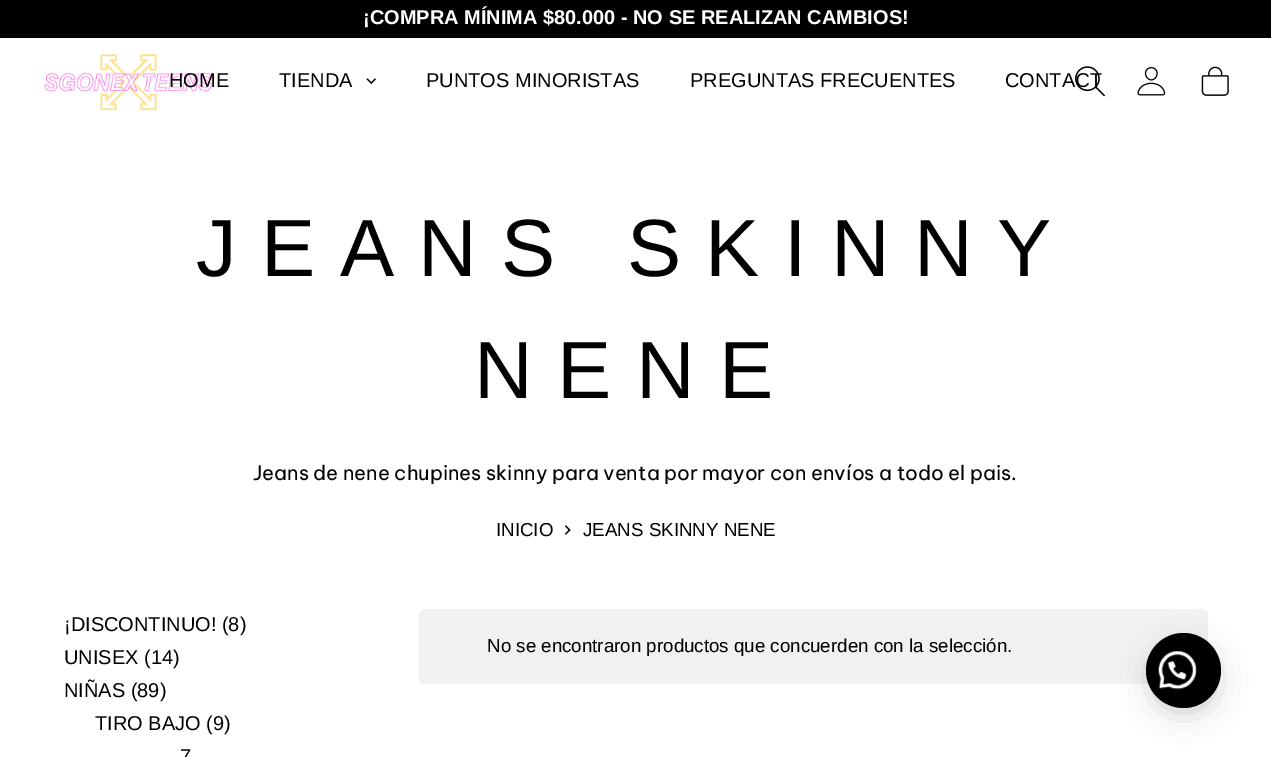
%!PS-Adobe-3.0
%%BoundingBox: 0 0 1271 757
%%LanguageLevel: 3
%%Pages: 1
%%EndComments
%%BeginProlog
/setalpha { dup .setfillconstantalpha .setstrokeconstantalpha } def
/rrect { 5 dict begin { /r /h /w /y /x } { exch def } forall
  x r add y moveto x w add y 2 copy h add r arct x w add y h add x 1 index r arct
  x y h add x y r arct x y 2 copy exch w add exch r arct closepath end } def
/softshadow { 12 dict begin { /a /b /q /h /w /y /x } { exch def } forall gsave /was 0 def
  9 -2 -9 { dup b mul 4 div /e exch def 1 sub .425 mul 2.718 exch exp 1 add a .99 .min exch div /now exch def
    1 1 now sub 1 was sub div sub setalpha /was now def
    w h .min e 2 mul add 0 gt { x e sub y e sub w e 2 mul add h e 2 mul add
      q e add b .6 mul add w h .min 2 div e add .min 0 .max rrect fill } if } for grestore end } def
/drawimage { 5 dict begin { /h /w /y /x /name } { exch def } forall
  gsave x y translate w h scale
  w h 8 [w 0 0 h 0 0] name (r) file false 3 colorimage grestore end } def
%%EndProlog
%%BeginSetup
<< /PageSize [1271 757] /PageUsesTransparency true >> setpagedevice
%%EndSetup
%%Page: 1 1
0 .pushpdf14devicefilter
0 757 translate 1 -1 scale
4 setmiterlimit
1 setgray
0 0 1271 757 rectfill
0 setgray
0 0 1271 38 rectfill
(images/1.raw) 44 54 169 57 drawimage
(images/2.raw) 366 78 10 6 drawimage
(images/4.raw) 1137 67 29 29 drawimage
(images/5.raw) 1201 66 28 30 drawimage
(images/6.raw) 565 525 6 10 drawimage
0.941 0.945 0.953 setrgbcolor
419 609 789 75 6 rrect fill
0.176 0.243 0.31 setrgbcolor
1153 649 62 62 31 15.5 0.3 softshadow
0 setgray
newpath 1183.5 670.5 37.5 0 360 arc closepath fill
(images/7.raw) 1158 651 39 39 drawimage
/LiberationSans-Bold [20 0 0 -20 0 0] selectfont
1 setgray
363 24 moveto (¡COMPRA MÍNIMA $80.000 - NO SE REALIZAN CAMBIOS!) show
/LiberationSans-Regular [20 0 0 -20 0 0] selectfont
0 setgray
169 87 moveto (HOME) show
279 87 moveto (TIENDA) show
426 87 moveto (PUNTOS MINORISTAS) show
690 87 moveto (PREGUNTAS FRECUENTES) show
1005 87 moveto (CONTACT) show
(images/3.raw) 1075 66 30 31 drawimage
/LiberationSans-Regular [81.25 0 0 -81.25 0 0] selectfont
196 276 moveto 24.4 0 (JEANS SKINNY) ashow
474 398 moveto 24.4 0 (NENE) ashow
/BeVietnamPro-Regular [20 0 0 -20 0 0] selectfont
253 480 moveto (Jeans de nene chupines skinny para venta por mayor con envíos a todo el pais.) show
/LiberationSans-Regular [18.75 0 0 -18.75 0 0] selectfont
496 536 moveto (INICIO) show
583 536 moveto (JEANS SKINNY NENE) show
/LiberationSans-Regular [20 0 0 -20 0 0] selectfont
64 631 moveto (¡DISCONTINUO! \(8\)) show
64 664 moveto (UNISEX \(14\)) show
64 697 moveto (NIÑAS \(89\)) show
95 730 moveto (TIRO BAJO \(9\)) show
180 763 moveto (7) show
/LiberationSans-Regular [18.75 0 0 -18.75 0 0] selectfont
487 652 moveto (No se encontraron productos que concuerden con la selección.) show
.poppdf14devicefilter showpage
%%EOF
